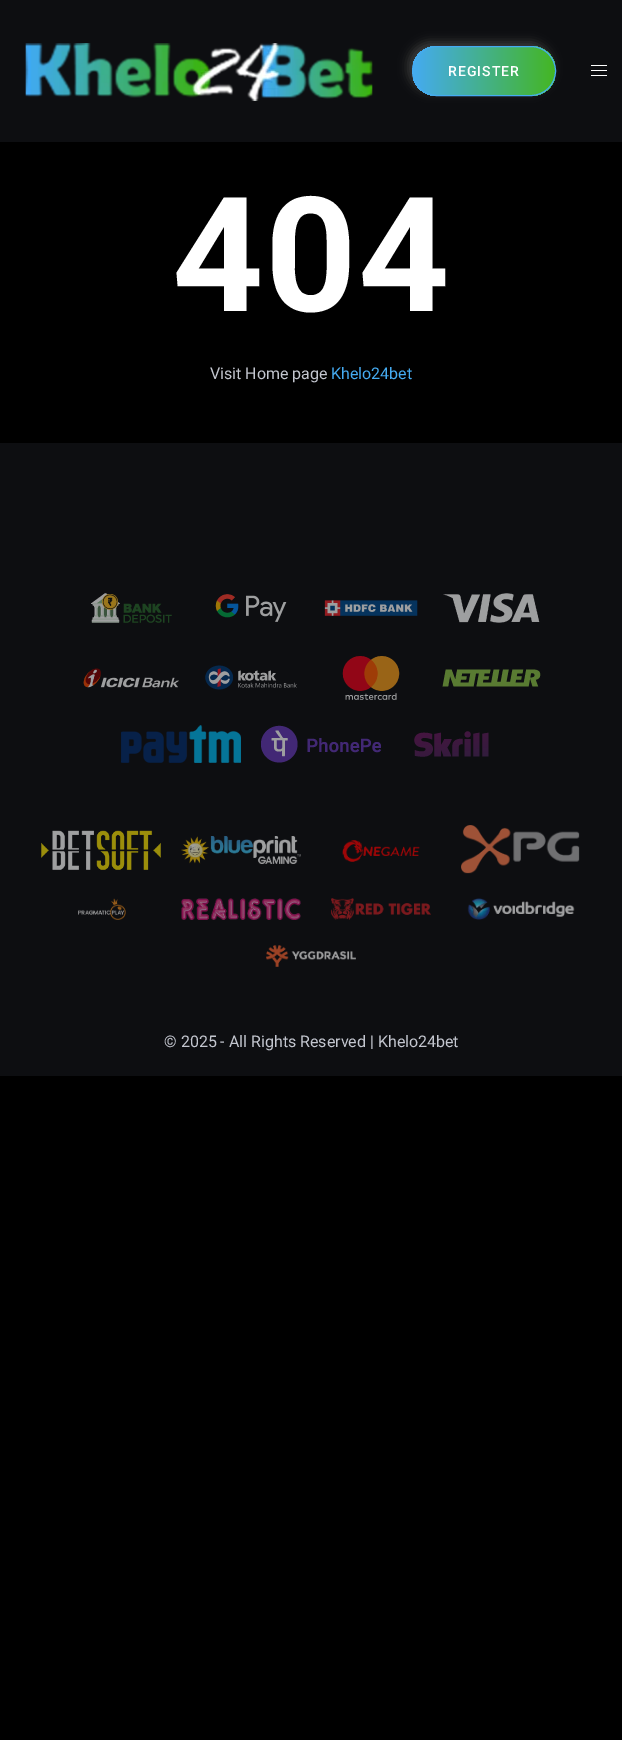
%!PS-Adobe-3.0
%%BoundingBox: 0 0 622 1740
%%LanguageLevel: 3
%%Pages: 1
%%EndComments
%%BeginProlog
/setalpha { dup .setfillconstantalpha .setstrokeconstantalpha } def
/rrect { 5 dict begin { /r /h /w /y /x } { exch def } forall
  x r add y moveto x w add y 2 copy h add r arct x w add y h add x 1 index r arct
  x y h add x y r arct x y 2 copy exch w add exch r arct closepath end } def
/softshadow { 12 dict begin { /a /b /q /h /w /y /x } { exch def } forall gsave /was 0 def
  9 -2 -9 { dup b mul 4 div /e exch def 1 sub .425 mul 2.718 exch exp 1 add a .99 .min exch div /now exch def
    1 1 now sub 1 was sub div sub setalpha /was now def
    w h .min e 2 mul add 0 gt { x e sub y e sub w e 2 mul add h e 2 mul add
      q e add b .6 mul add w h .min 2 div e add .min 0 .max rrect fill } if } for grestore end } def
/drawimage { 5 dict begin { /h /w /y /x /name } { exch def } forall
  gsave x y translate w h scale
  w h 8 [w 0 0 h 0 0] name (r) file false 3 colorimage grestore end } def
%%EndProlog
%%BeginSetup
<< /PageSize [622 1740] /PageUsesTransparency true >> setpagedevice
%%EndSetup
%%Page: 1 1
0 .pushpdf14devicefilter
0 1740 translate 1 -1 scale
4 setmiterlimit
0 setgray
0 0 622 1740 rectfill
0.051 0.055 0.067 setrgbcolor
0 0 622 142 rectfill
(images/1.raw) 25 43 348 58 drawimage
0.235 setgray
408 42 144 50 25 5 1 softshadow
gsave
412 46 144 50 25 rrect clip newpath
gsave newpath 413 46 moveto 555 46 lineto 555 96 lineto 413 96 lineto closepath clip newpath
<< /ShadingType 2 /ColorSpace /DeviceRGB /Coords [413 71 555 71] /Extend [true true] /Function << /FunctionType 2 /Domain [0 1] /C0 [0.271 0.671 0.945] /C1 [0.267 0.714 0.137] /N 1 >> >> shfill grestore
grestore
0.271 0.671 0.945 setrgbcolor
412.5 46.5 143 49 24.5 rrect stroke
1 setgray
591 65 16 1 rectfill
591 70 16 1 rectfill
591 75 16 1 rectfill
0.051 0.055 0.067 setrgbcolor
0 443 622 633 rectfill
(images/2.raw) 91 593 81 30 drawimage
(images/3.raw) 215 594 72 28 drawimage
(images/4.raw) 324 600 94 16 drawimage
(images/5.raw) 443 593 97 30 drawimage
(images/6.raw) 83 668 96 20 drawimage
(images/7.raw) 205 665 92 25 drawimage
(images/8.raw) 342 656 58 44 drawimage
(images/9.raw) 442 669 99 18 drawimage
(images/10.raw) 121 725 120 38 drawimage
(images/11.raw) 261 725 120 38 drawimage
(images/12.raw) 414 731 75 26 drawimage
(images/13.raw) 41 830 120 40 drawimage
(images/14.raw) 181 836 120 28 drawimage
(images/15.raw) 342 840 78 22 drawimage
(images/16.raw) 461 825 119 49 drawimage
(images/17.raw) 78 898 48 22 drawimage
(images/18.raw) 181 898 120 22 drawimage
(images/19.raw) 331 898 100 22 drawimage
(images/20.raw) 467 898 108 22 drawimage
(images/21.raw) 266 945 90 22 drawimage
/Roboto-Medium [14 0 0 -14 0 0] selectfont
1 setgray
448 76 moveto 1 0 (REGISTER) ashow
/Roboto-Bold [160 0 0 -160 0 0] selectfont
172 311 moveto 1 0 (404) ashow
/Roboto-Regular [16 0 0 -16 0 0] selectfont
0.765 0.776 0.812 setrgbcolor
210 379 moveto (Visit Home page) show
0.271 0.671 0.945 setrgbcolor
331 379 moveto (Khelo24bet) show
0.765 0.776 0.812 setrgbcolor
164 1047 moveto (© 2025 - All Rights Reserved | Khelo24bet) show
.poppdf14devicefilter showpage
%%EOF
